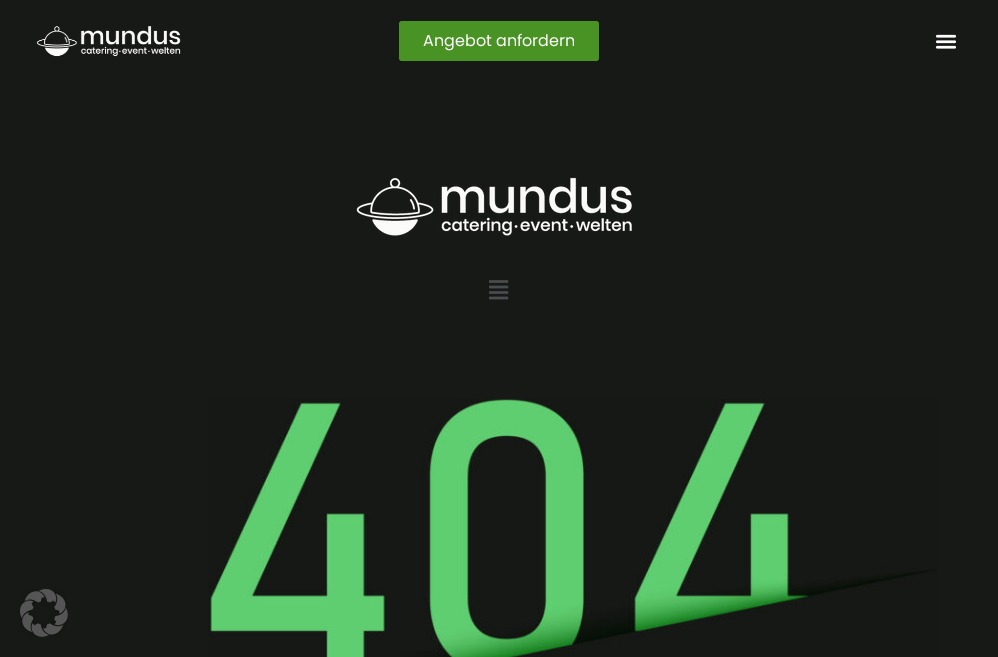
%!PS-Adobe-3.0
%%BoundingBox: 0 0 998 657
%%LanguageLevel: 3
%%Pages: 1
%%EndComments
%%BeginProlog
/rrect { 5 dict begin { /r /h /w /y /x } { exch def } forall
  x r add y moveto x w add y 2 copy h add r arct x w add y h add x 1 index r arct
  x y h add x y r arct x y 2 copy exch w add exch r arct closepath end } def
/drawimage { 5 dict begin { /h /w /y /x /name } { exch def } forall
  gsave x y translate w h scale
  w h 8 [w 0 0 h 0 0] name (r) file false 3 colorimage grestore end } def
%%EndProlog
%%BeginSetup
<< /PageSize [998 657] >> setpagedevice
%%EndSetup
%%Page: 1 1
0 657 translate 1 -1 scale
4 setmiterlimit
0.09 0.098 0.086 setrgbcolor
0 0 998 657 rectfill
(images/1.raw) 36 26 145 31 drawimage
0.286 0.576 0.145 setrgbcolor
399 21 200 40 3 rrect fill
(images/2.raw) 935 34 22 15 drawimage
(images/3.raw) 356 177 276 59 drawimage
(images/4.raw) 489 280 20 20 drawimage
(images/5.raw) 208 399 729 258 drawimage
(images/6.raw) 20 589 48 48 drawimage
/Poppins-Regular [16 0 0 -16 0 0] selectfont
1 setgray
423 46 moveto (Angebot anfordern) show
showpage
%%EOF
